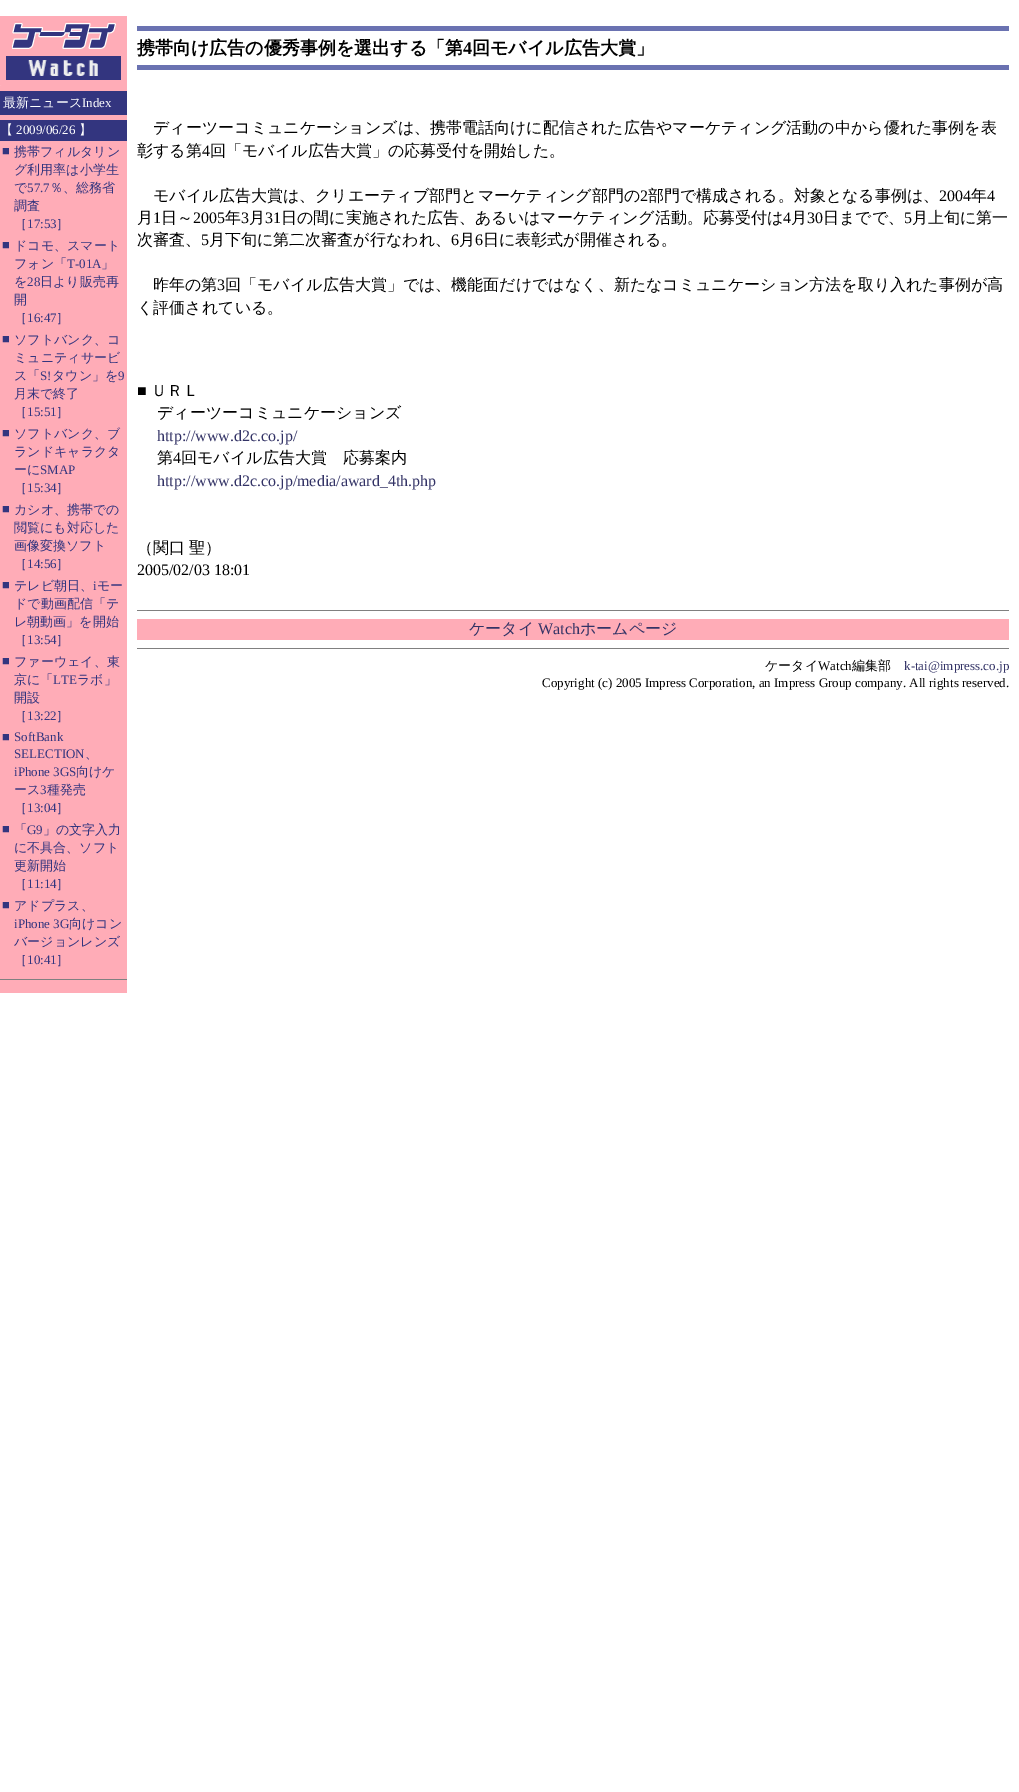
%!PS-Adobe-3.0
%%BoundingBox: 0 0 1019 1792
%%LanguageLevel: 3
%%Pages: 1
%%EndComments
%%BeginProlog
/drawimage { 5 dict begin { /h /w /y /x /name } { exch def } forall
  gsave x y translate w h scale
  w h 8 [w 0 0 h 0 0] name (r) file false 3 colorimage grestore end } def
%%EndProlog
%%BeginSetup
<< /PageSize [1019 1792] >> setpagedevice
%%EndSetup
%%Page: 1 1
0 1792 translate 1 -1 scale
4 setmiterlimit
1 setgray
0 0 1019 1792 rectfill
1 0.675 0.718 setrgbcolor
0 16 127 977 rectfill
(images/1.raw) 0 21 121 65 drawimage
0.2 0.208 0.498 setrgbcolor
0 91 127 24 rectfill
0 120 127 21 rectfill
0.502 setgray
0 979 127 1 rectfill
0.416 0.447 0.694 setrgbcolor
137 26 872 5 rectfill
137 65 872 5 rectfill
0.502 setgray
137 610 872 1 rectfill
1 0.675 0.718 setrgbcolor
137 619 872 21 rectfill
0.502 setgray
137 648 872 1 rectfill
/WenQuanYiZenHei-Medium [13 0 0 -13 0 0] selectfont
1 setgray
3 107 moveto (最新ニュース) show
/LiberationSerif-Regular [13 0 0 -13 0 0] selectfont
82 107 moveto (Index) show
/WenQuanYiZenHei-Medium [13 0 0 -13 0 0] selectfont
0 134 moveto (【) show
/LiberationSerif-Regular [13 0 0 -13 0 0] selectfont
16 134 moveto (2009/06/26) show
/WenQuanYiZenHei-Medium [13 0 0 -13 0 0] selectfont
79 134 moveto (】) show
/LiberationSerif-Regular [13 0 0 -13 0 0] selectfont
0.2 0.208 0.498 setrgbcolor
2 155 moveto (■) show
/WenQuanYiZenHei-Medium [13 0 0 -13 0 0] selectfont
14 156 moveto (携帯フィルタリン) show
14 174 moveto (グ利用率は小学生) show
14 192 moveto (で) show
/LiberationSerif-Regular [13 0 0 -13 0 0] selectfont
27 192 moveto (57.7) show
/WenQuanYiZenHei-Medium [13 0 0 -13 0 0] selectfont
50 192 moveto (％、総務省) show
14 210 moveto (調査) show
14 228 moveto (［) show
/LiberationSerif-Regular [13 0 0 -13 0 0] selectfont
27 228 moveto (17:53) show
/WenQuanYiZenHei-Medium [13 0 0 -13 0 0] selectfont
56 228 moveto (］) show
/LiberationSerif-Regular [13 0 0 -13 0 0] selectfont
2 249 moveto (■) show
/WenQuanYiZenHei-Medium [13 0 0 -13 0 0] selectfont
14 250 moveto (ドコモ、スマート) show
14 268 moveto (フォン「) show
/LiberationSerif-Regular [13 0 0 -13 0 0] selectfont
67 268 moveto (T-01A) show
/WenQuanYiZenHei-Medium [13 0 0 -13 0 0] selectfont
101 268 moveto (」) show
14 286 moveto (を) show
/LiberationSerif-Regular [13 0 0 -13 0 0] selectfont
27 286 moveto (28) show
/WenQuanYiZenHei-Medium [13 0 0 -13 0 0] selectfont
40 286 moveto (日より販売再) show
14 304 moveto (開) show
14 322 moveto (［) show
/LiberationSerif-Regular [13 0 0 -13 0 0] selectfont
27 322 moveto (16:47) show
/WenQuanYiZenHei-Medium [13 0 0 -13 0 0] selectfont
56 322 moveto (］) show
/LiberationSerif-Regular [13 0 0 -13 0 0] selectfont
2 343 moveto (■) show
/WenQuanYiZenHei-Medium [13 0 0 -13 0 0] selectfont
14 344 moveto (ソフトバンク、コ) show
14 362 moveto (ミュニティサービ) show
14 380 moveto (ス「) show
/LiberationSerif-Regular [13 0 0 -13 0 0] selectfont
40 380 moveto (S!) show
/WenQuanYiZenHei-Medium [13 0 0 -13 0 0] selectfont
52 380 moveto (タウン」を) show
/LiberationSerif-Regular [13 0 0 -13 0 0] selectfont
118 380 moveto (9) show
/WenQuanYiZenHei-Medium [13 0 0 -13 0 0] selectfont
14 398 moveto (月末で終了) show
14 416 moveto (［) show
/LiberationSerif-Regular [13 0 0 -13 0 0] selectfont
27 416 moveto (15:51) show
/WenQuanYiZenHei-Medium [13 0 0 -13 0 0] selectfont
56 416 moveto (］) show
/LiberationSerif-Regular [13 0 0 -13 0 0] selectfont
2 437 moveto (■) show
/WenQuanYiZenHei-Medium [13 0 0 -13 0 0] selectfont
14 438 moveto (ソフトバンク、ブ) show
14 456 moveto (ランドキャラクタ) show
14 474 moveto (ーに) show
/LiberationSerif-Regular [13 0 0 -13 0 0] selectfont
40 474 moveto (SMAP) show
/WenQuanYiZenHei-Medium [13 0 0 -13 0 0] selectfont
14 492 moveto (［) show
/LiberationSerif-Regular [13 0 0 -13 0 0] selectfont
27 492 moveto (15:34) show
/WenQuanYiZenHei-Medium [13 0 0 -13 0 0] selectfont
56 492 moveto (］) show
/LiberationSerif-Regular [13 0 0 -13 0 0] selectfont
2 513 moveto (■) show
/WenQuanYiZenHei-Medium [13 0 0 -13 0 0] selectfont
14 514 moveto (カシオ、携帯での) show
14 532 moveto (閲覧にも対応した) show
14 550 moveto (画像変換ソフト) show
14 568 moveto (［) show
/LiberationSerif-Regular [13 0 0 -13 0 0] selectfont
27 568 moveto (14:56) show
/WenQuanYiZenHei-Medium [13 0 0 -13 0 0] selectfont
56 568 moveto (］) show
/LiberationSerif-Regular [13 0 0 -13 0 0] selectfont
2 589 moveto (■) show
/WenQuanYiZenHei-Medium [13 0 0 -13 0 0] selectfont
14 590 moveto (テレビ朝日、 モー) show
/LiberationSerif-Regular [13 0 0 -13 0 0] selectfont
93 590 moveto (i) show
/WenQuanYiZenHei-Medium [13 0 0 -13 0 0] selectfont
14 608 moveto (ドで動画配信「テ) show
14 626 moveto (レ朝動画」を開始) show
14 644 moveto (［) show
/LiberationSerif-Regular [13 0 0 -13 0 0] selectfont
27 644 moveto (13:54) show
/WenQuanYiZenHei-Medium [13 0 0 -13 0 0] selectfont
56 644 moveto (］) show
/LiberationSerif-Regular [13 0 0 -13 0 0] selectfont
2 665 moveto (■) show
/WenQuanYiZenHei-Medium [13 0 0 -13 0 0] selectfont
14 666 moveto (ファーウェイ、東) show
14 684 moveto (京に「) show
/LiberationSerif-Regular [13 0 0 -13 0 0] selectfont
53 684 moveto (LTE) show
/WenQuanYiZenHei-Medium [13 0 0 -13 0 0] selectfont
77 684 moveto (ラボ」) show
14 702 moveto (開設) show
14 720 moveto (［) show
/LiberationSerif-Regular [13 0 0 -13 0 0] selectfont
27 720 moveto (13:22) show
/WenQuanYiZenHei-Medium [13 0 0 -13 0 0] selectfont
56 720 moveto (］) show
/LiberationSerif-Regular [13 0 0 -13 0 0] selectfont
2 741 moveto (■) show
14 741 moveto (SoftBank) show
14 758 moveto (SELECTION) show
/WenQuanYiZenHei-Medium [13 0 0 -13 0 0] selectfont
85 758 moveto (、) show
/LiberationSerif-Regular [13 0 0 -13 0 0] selectfont
14 776 moveto (iPhone 3GS) show
/WenQuanYiZenHei-Medium [13 0 0 -13 0 0] selectfont
76 776 moveto (向けケ) show
14 794 moveto (ース) show
/LiberationSerif-Regular [13 0 0 -13 0 0] selectfont
40 794 moveto (3) show
/WenQuanYiZenHei-Medium [13 0 0 -13 0 0] selectfont
47 794 moveto (種発売) show
14 812 moveto (［) show
/LiberationSerif-Regular [13 0 0 -13 0 0] selectfont
27 812 moveto (13:04) show
/WenQuanYiZenHei-Medium [13 0 0 -13 0 0] selectfont
56 812 moveto (］) show
/LiberationSerif-Regular [13 0 0 -13 0 0] selectfont
2 833 moveto (■) show
/WenQuanYiZenHei-Medium [13 0 0 -13 0 0] selectfont
14 834 moveto (「) show
/LiberationSerif-Regular [13 0 0 -13 0 0] selectfont
27 834 moveto (G9) show
/WenQuanYiZenHei-Medium [13 0 0 -13 0 0] selectfont
43 834 moveto (」の文字入力) show
14 852 moveto (に不具合、ソフト) show
14 870 moveto (更新開始) show
14 888 moveto (［) show
/LiberationSerif-Regular [13 0 0 -13 0 0] selectfont
27 888 moveto (11:14) show
/WenQuanYiZenHei-Medium [13 0 0 -13 0 0] selectfont
56 888 moveto (］) show
/LiberationSerif-Regular [13 0 0 -13 0 0] selectfont
2 909 moveto (■) show
/WenQuanYiZenHei-Medium [13 0 0 -13 0 0] selectfont
14 910 moveto (アドプラス、) show
/LiberationSerif-Regular [13 0 0 -13 0 0] selectfont
14 928 moveto (iPhone 3G) show
/WenQuanYiZenHei-Medium [13 0 0 -13 0 0] selectfont
69 928 moveto (向けコン) show
14 946 moveto (バージョンレンズ) show
14 964 moveto (［) show
/LiberationSerif-Regular [13 0 0 -13 0 0] selectfont
27 964 moveto (10:41) show
/WenQuanYiZenHei-Medium [13 0 0 -13 0 0] selectfont
56 964 moveto (］) show
/WenQuanYiZenHei-Bold [18 0 0 -18 0 0] selectfont
0 setgray
137 54 moveto (携帯向け広告の優秀事例を選出する「第) show
/LiberationSerif-Bold [18 0 0 -18 0 0] selectfont
463 54 moveto (4) show
/WenQuanYiZenHei-Bold [18 0 0 -18 0 0] selectfont
472 54 moveto (回モバイル広告大賞」) show
/WenQuanYiZenHei-Medium [16 0 0 -16 0 0] selectfont
153 133 moveto (ディーツーコミュニケーションズは、携帯電話向けに配信された広告やマーケティング活動の中から優れた事例を表) show
137 156 moveto (彰する第) show
/LiberationSerif-Regular [16 0 0 -16 0 0] selectfont
202 156 moveto (4) show
/WenQuanYiZenHei-Medium [16 0 0 -16 0 0] selectfont
210 156 moveto (回「モバイル広告大賞」の応募受付を開始した。) show
153 201 moveto (モバイル広告大賞は、クリエーティブ部門とマーケティング部門の) show
/LiberationSerif-Regular [16 0 0 -16 0 0] selectfont
640 201 moveto (2) show
/WenQuanYiZenHei-Medium [16 0 0 -16 0 0] selectfont
648 201 moveto (部門で構成される。対象となる事例は、) show
/LiberationSerif-Regular [16 0 0 -16 0 0] selectfont
939 201 moveto (2004) show
/WenQuanYiZenHei-Medium [16 0 0 -16 0 0] selectfont
971 201 moveto (年) show
/LiberationSerif-Regular [16 0 0 -16 0 0] selectfont
987 201 moveto (4) show
/WenQuanYiZenHei-Medium [16 0 0 -16 0 0] selectfont
137 223 moveto (月) show
/LiberationSerif-Regular [16 0 0 -16 0 0] selectfont
153 223 moveto (1) show
/WenQuanYiZenHei-Medium [16 0 0 -16 0 0] selectfont
161 223 moveto (日～) show
/LiberationSerif-Regular [16 0 0 -16 0 0] selectfont
193 223 moveto (2005) show
/WenQuanYiZenHei-Medium [16 0 0 -16 0 0] selectfont
225 223 moveto (年) show
/LiberationSerif-Regular [16 0 0 -16 0 0] selectfont
241 223 moveto (3) show
/WenQuanYiZenHei-Medium [16 0 0 -16 0 0] selectfont
249 223 moveto (月) show
/LiberationSerif-Regular [16 0 0 -16 0 0] selectfont
265 223 moveto (31) show
/WenQuanYiZenHei-Medium [16 0 0 -16 0 0] selectfont
281 223 moveto (日の間に実施された広告、あるいはマーケティング活動。応募受付は) show
/LiberationSerif-Regular [16 0 0 -16 0 0] selectfont
783 223 moveto (4) show
/WenQuanYiZenHei-Medium [16 0 0 -16 0 0] selectfont
791 223 moveto (月) show
/LiberationSerif-Regular [16 0 0 -16 0 0] selectfont
807 223 moveto (30) show
/WenQuanYiZenHei-Medium [16 0 0 -16 0 0] selectfont
823 223 moveto (日までで、) show
/LiberationSerif-Regular [16 0 0 -16 0 0] selectfont
904 223 moveto (5) show
/WenQuanYiZenHei-Medium [16 0 0 -16 0 0] selectfont
912 223 moveto (月上旬に第一) show
137 245 moveto (次審査、) show
/LiberationSerif-Regular [16 0 0 -16 0 0] selectfont
201 245 moveto (5) show
/WenQuanYiZenHei-Medium [16 0 0 -16 0 0] selectfont
209 245 moveto (月下旬に第二次審査が行なわれ、) show
/LiberationSerif-Regular [16 0 0 -16 0 0] selectfont
451 245 moveto (6) show
/WenQuanYiZenHei-Medium [16 0 0 -16 0 0] selectfont
459 245 moveto (月) show
/LiberationSerif-Regular [16 0 0 -16 0 0] selectfont
475 245 moveto (6) show
/WenQuanYiZenHei-Medium [16 0 0 -16 0 0] selectfont
483 245 moveto (日に表彰式が開催される。) show
153 290 moveto (昨年の第) show
/LiberationSerif-Regular [16 0 0 -16 0 0] selectfont
217 290 moveto (3) show
/WenQuanYiZenHei-Medium [16 0 0 -16 0 0] selectfont
225 290 moveto (回「モバイル広告大賞」では、機能面だけではなく、新たなコミュニケーション方法を取り入れた事例が高) show
137 313 moveto (く評価されている。) show
/LiberationSerif-Regular [16 0 0 -16 0 0] selectfont
137 396 moveto (■) show
/WenQuanYiZenHei-Medium [16 0 0 -16 0 0] selectfont
151 396 moveto (ＵＲＬ) show
157 418 moveto (ディーツーコミュニケーションズ) show
/LiberationSerif-Regular [16 0 0 -16 0 0] selectfont
0.2 0.2 0.4 setrgbcolor
157 441 moveto (http://www.d2c.co.jp/) show
/WenQuanYiZenHei-Medium [16 0 0 -16 0 0] selectfont
0 setgray
157 463 moveto (第) show
/LiberationSerif-Regular [16 0 0 -16 0 0] selectfont
173 463 moveto (4) show
/WenQuanYiZenHei-Medium [16 0 0 -16 0 0] selectfont
181 463 moveto (回モバイル広告大賞　応募案内) show
/LiberationSerif-Regular [16 0 0 -16 0 0] selectfont
0.2 0.2 0.4 setrgbcolor
157 486 moveto (http://www.d2c.co.jp/media/award_4th.php) show
/WenQuanYiZenHei-Medium [16 0 0 -16 0 0] selectfont
0 setgray
137 553 moveto -1 0 32 (（関口 聖）) widthshow
/LiberationSerif-Regular [16 0 0 -16 0 0] selectfont
137 575 moveto (2005/02/03 18:01) show
/WenQuanYiZenHei-Medium [16 0 0 -16 0 0] selectfont
0.2 0.2 0.4 setrgbcolor
469 634 moveto (ケータイ) show
/LiberationSerif-Regular [16 0 0 -16 0 0] selectfont
538 634 moveto (Watch) show
/WenQuanYiZenHei-Medium [16 0 0 -16 0 0] selectfont
580 634 moveto (ホームページ) show
/WenQuanYiZenHei-Medium [13 0 0 -13 0 0] selectfont
0 setgray
765 670 moveto (ケータイ) show
/LiberationSerif-Regular [13 0 0 -13 0 0] selectfont
818 670 moveto (Watch) show
/WenQuanYiZenHei-Medium [13 0 0 -13 0 0] selectfont
852 670 moveto (編集部) show
/LiberationSerif-Regular [13 0 0 -13 0 0] selectfont
0.2 0.2 0.4 setrgbcolor
904 670 moveto (k-tai@impress.co.jp) show
0 setgray
542 687 moveto (Copyright \(c\) 2005 Impress Corporation, an Impress Group company. All rights reserved.) show
showpage
%%EOF
